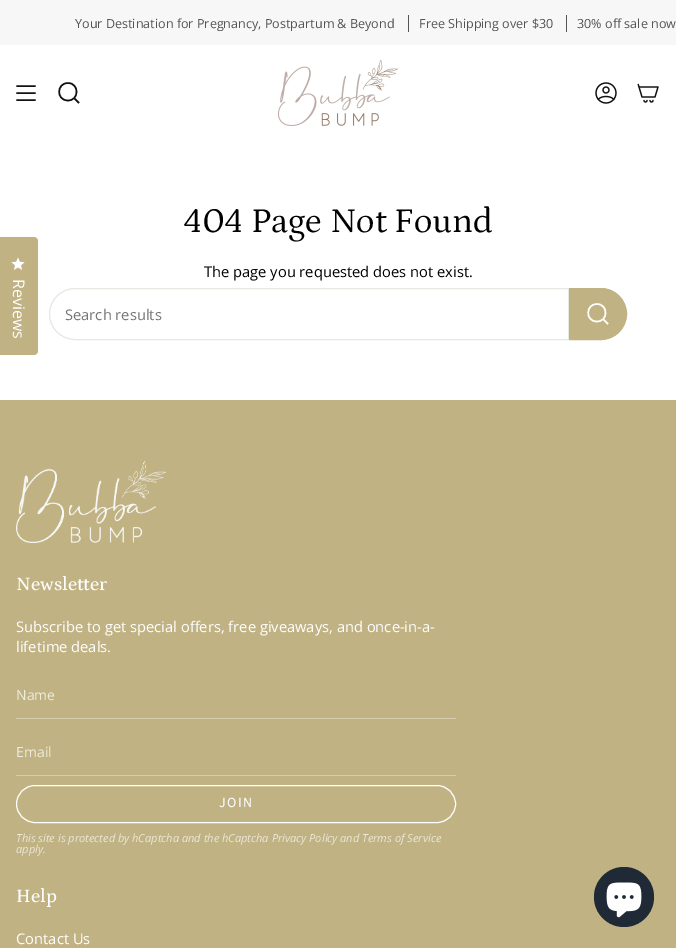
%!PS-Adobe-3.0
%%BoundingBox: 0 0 676 948
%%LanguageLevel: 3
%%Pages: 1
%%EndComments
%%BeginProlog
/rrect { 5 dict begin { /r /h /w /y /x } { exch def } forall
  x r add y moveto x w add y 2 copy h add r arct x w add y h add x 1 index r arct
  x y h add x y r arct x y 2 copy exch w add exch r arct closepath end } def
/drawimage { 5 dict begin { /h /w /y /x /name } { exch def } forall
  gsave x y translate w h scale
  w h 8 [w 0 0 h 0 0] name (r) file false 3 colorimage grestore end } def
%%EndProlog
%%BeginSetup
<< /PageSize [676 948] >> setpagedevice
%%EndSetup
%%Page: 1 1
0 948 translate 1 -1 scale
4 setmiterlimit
1 setgray
0 0 676 948 rectfill
0.753 0.698 0.514 setrgbcolor
newpath -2 237 moveto 34 237 lineto 36 237 38 239 38 241 curveto 38 351 lineto 38 353 36 355 34 355 curveto -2 355 lineto closepath fill
(images/1.raw) 11 257 14 13 drawimage
0.969 setgray
0 0 676 45 rectfill
0.329 setgray
408 15 1 17 rectfill
566 15 1 17 rectfill
0.067 setgray
1.5 setlinewidth
1 setlinecap
1 setlinejoin
newpath 17 86 moveto 35 86 lineto 17 93 moveto 35 93 lineto 17 100 moveto 35 100 lineto stroke
0 setlinecap
0 setlinejoin
newpath 68 83 moveto 79.5 83 79.5 101 67.5 100.5 curveto 56 100 56.5 83 68 83 curveto closepath 74 98 moveto 79 103 lineto stroke
(images/2.raw) 278 60 120 66 drawimage
(images/3.raw) 595 82 22 22 drawimage
(images/4.raw) 637 83 22 20 drawimage
0.894 0.914 0.882 setrgbcolor
1 setlinewidth
newpath 75 288.5 moveto 568.5 288.5 lineto 568.5 339.5 lineto 75 339.5 lineto 61 339.5 49.5 328 49.5 314 curveto 49.5 300 61 288.5 75 288.5 curveto closepath stroke
0.753 0.698 0.514 setrgbcolor
newpath 569.5 288.5 moveto 601 288.5 lineto 615 288.5 626.5 300 626.5 314 curveto 626.5 328 615 339.5 601 339.5 curveto 569.5 339.5 lineto closepath gsave fill grestore
stroke
1 setgray
1.5 setlinewidth
newpath 597 304 moveto 608.5 304 608.5 322 596.5 321.5 curveto 585 321 585.5 304 597 304 curveto closepath 603 319 moveto 608 324 lineto stroke
0.753 0.698 0.514 setrgbcolor
0 400 676 548 rectfill
(images/5.raw) 16 461 150 82 drawimage
0.839 0.804 0.682 setrgbcolor
16 718 440 1 rectfill
16 775 440 1 rectfill
1 setgray
1 setlinewidth
16.5 785.5 439 37 18.5 rrect stroke
0.125 0.165 0.212 setrgbcolor
newpath 624 897 30 0 360 arc closepath fill
(images/6.raw) 606 882 36 36 drawimage
/OpenSans-Regular [16 0 0 -16 0 0] selectfont
1 setgray
gsave 13 279 translate 90.1 rotate 0 0 moveto (Reviews) show grestore
/OpenSans-Regular [12.6 0 0 -12.6 0 0] selectfont
0.329 setgray
75 28 moveto (Your Destination for Pregnancy, Postpartum & Beyond) show
419 28 moveto (Free Shipping over $30) show
577 28 moveto (30% off sale now) show
/Petrona-Regular [35.25 0 0 -35.25 0 0] selectfont
0 setgray
184 232 moveto (404 Page Not Found) show
/OpenSans-Regular [14.7 0 0 -14.7 0 0] selectfont
204 277 moveto (The page you requested does not exist.) show
0.459 setgray
65 320 moveto (Search results) show
/Petrona-Medium [19.25 0 0 -19.25 0 0] selectfont
1 setgray
16 590 moveto (Newsletter) show
/OpenSans-Regular [14.7 0 0 -14.7 0 0] selectfont
16 632 moveto (Subscribe to get special offers, free giveaways, and once-in-a-) show
16 652 moveto (lifetime deals.) show
/OpenSans-Regular [14 0 0 -14 0 0] selectfont
0.937 0.925 0.878 setrgbcolor
16 700 moveto (Name) show
16 757 moveto (Email) show
/SourceSansPro-Regular [14 0 0 -14 0 0] selectfont
1 setgray
219 807 moveto 1.5 0 (JOIN) ashow
/OpenSans-Italic [11.05 0 0 -11.05 0 0] selectfont
0.925 0.91 0.855 setrgbcolor
16 842 moveto (This site is protected by hCaptcha and the hCaptcha Privacy Policy and Terms of Service) show
16 853 moveto (apply.) show
/Petrona-Medium [19.25 0 0 -19.25 0 0] selectfont
1 setgray
16 902 moveto (Help) show
/OpenSans-Regular [14.7 0 0 -14.7 0 0] selectfont
16 944 moveto (Contact Us) show
showpage
%%EOF
